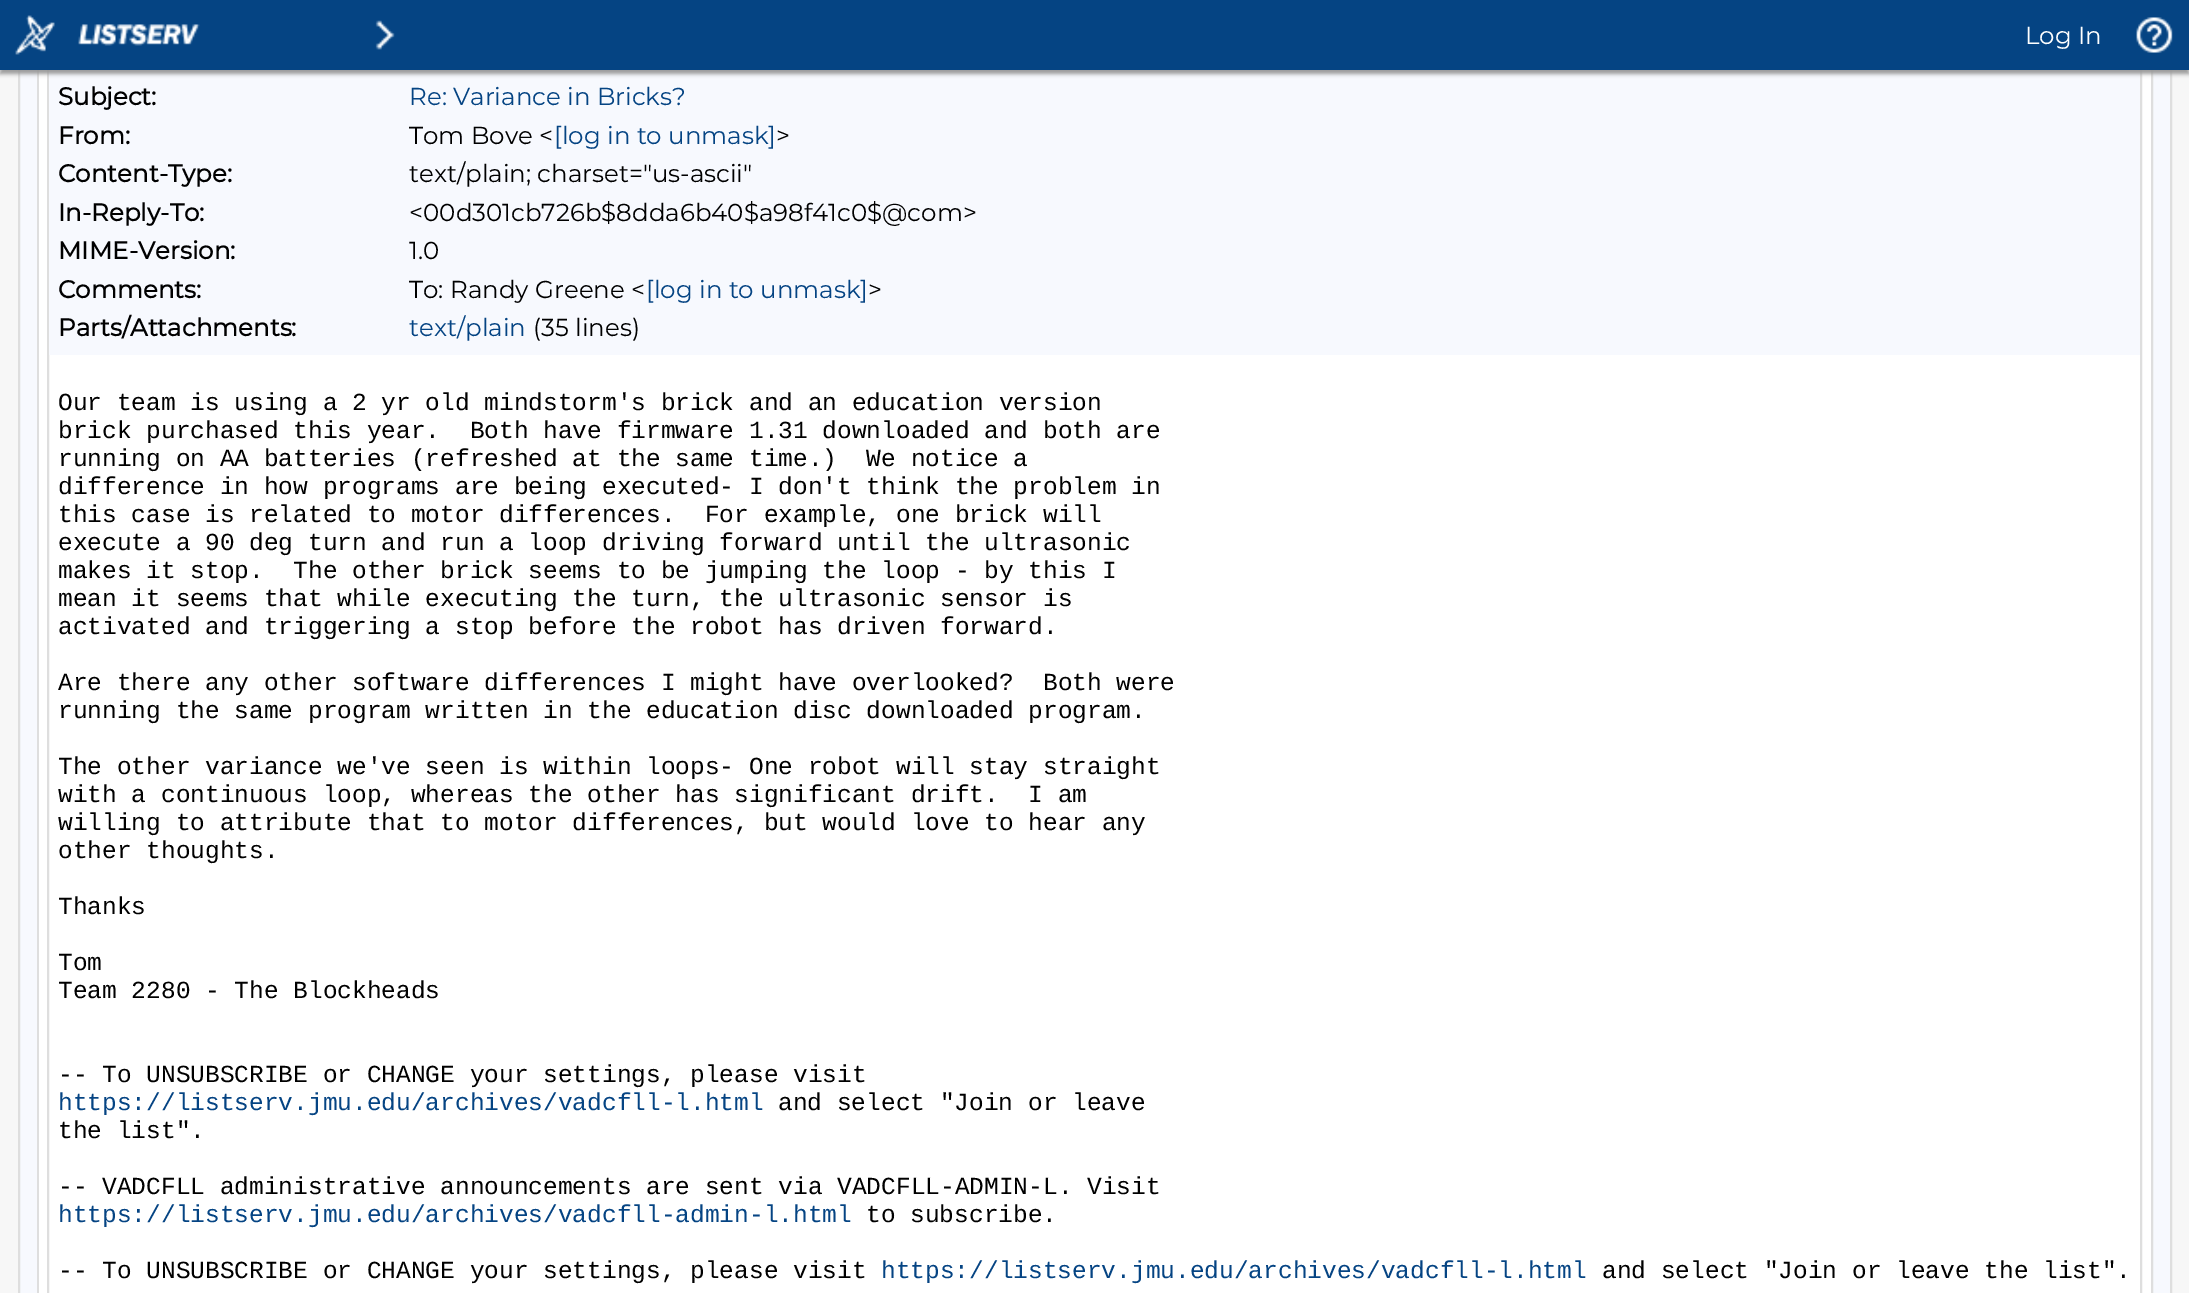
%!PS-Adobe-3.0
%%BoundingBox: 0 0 2189 1293
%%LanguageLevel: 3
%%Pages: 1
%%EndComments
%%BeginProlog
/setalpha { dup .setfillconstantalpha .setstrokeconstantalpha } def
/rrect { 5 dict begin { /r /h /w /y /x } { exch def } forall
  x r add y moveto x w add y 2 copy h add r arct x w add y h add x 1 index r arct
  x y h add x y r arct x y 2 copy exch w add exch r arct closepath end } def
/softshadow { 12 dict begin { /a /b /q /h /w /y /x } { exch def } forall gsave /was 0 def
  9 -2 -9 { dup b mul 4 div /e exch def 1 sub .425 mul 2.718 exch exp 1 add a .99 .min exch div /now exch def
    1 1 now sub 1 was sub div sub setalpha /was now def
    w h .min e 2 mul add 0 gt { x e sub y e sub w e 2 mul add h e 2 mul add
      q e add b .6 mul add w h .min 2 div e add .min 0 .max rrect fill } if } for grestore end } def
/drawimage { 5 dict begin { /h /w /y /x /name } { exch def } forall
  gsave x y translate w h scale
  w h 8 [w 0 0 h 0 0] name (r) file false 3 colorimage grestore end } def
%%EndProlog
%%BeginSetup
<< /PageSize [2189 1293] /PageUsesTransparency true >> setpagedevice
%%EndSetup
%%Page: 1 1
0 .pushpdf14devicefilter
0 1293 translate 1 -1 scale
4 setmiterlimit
0.969 setgray
0 0 2189 1293 rectfill
0.969 0.976 0.996 setrgbcolor
20 70 2150 1223 rectfill
0.871 setgray
2 setlinewidth
19 -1 2152 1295 rectstroke
38 -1 2114 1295 rectstroke
1 setgray
39 70 2112 1223 rectfill
0.871 setgray
48 -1 2093 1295 rectstroke
0.969 0.976 0.996 setrgbcolor
49 70 2091 285 rectfill
0.6 setgray
0 4 2189 70 0 2 1 softshadow
0.02 0.267 0.514 setrgbcolor
0 0 2189 70 rectfill
(images/1.raw) 15 15 40 40 drawimage
(images/2.raw) 78 24 122 22 drawimage
(images/3.raw) 375 20 20 30 drawimage
(images/4.raw) 2136 17 37 36 drawimage
/Montserrat-Thin [24.5 0 0 -24.5 0 0] selectfont
1 setgray
2025 44 moveto (Log In) show
/Montserrat-Bold [24.5 0 0 -24.5 0 0] selectfont
0 setgray
58 105 moveto (Subject:) show
/Montserrat-Thin [24.5 0 0 -24.5 0 0] selectfont
0.02 0.267 0.514 setrgbcolor
409 105 moveto (Re: Variance in Bricks?) show
/Montserrat-Bold [24.5 0 0 -24.5 0 0] selectfont
0 setgray
58 144 moveto (From:) show
/Montserrat-Thin [24.5 0 0 -24.5 0 0] selectfont
409 144 moveto (Tom Bove <) show
0.02 0.267 0.514 setrgbcolor
554 144 moveto ([log in to unmask]) show
0 setgray
776 144 moveto (>) show
/Montserrat-Bold [24.5 0 0 -24.5 0 0] selectfont
58 182 moveto (Content-Type:) show
/Montserrat-Thin [24.5 0 0 -24.5 0 0] selectfont
409 182 moveto (text/plain; charset="us-ascii") show
/Montserrat-Bold [24.5 0 0 -24.5 0 0] selectfont
58 221 moveto (In-Reply-To:) show
/Montserrat-Thin [24.5 0 0 -24.5 0 0] selectfont
409 221 moveto (<00d301cb726b$8dda6b40$a98f41c0$@com>) show
/Montserrat-Bold [24.5 0 0 -24.5 0 0] selectfont
58 259 moveto (MIME-Version:) show
/Montserrat-Thin [24.5 0 0 -24.5 0 0] selectfont
409 259 moveto (1.0) show
/Montserrat-Bold [24.5 0 0 -24.5 0 0] selectfont
58 298 moveto (Comments:) show
/Montserrat-Thin [24.5 0 0 -24.5 0 0] selectfont
409 298 moveto (To: Randy Greene <) show
0.02 0.267 0.514 setrgbcolor
646 298 moveto ([log in to unmask]) show
0 setgray
868 298 moveto (>) show
/Montserrat-Bold [24.5 0 0 -24.5 0 0] selectfont
58 336 moveto (Parts/Attachments:) show
/Montserrat-Thin [24.5 0 0 -24.5 0 0] selectfont
0.02 0.267 0.514 setrgbcolor
409 336 moveto (text/plain) show
0 setgray
533 336 moveto (\(35 lines\)) show
/LiberationMono-Regular [24.5 0 0 -24.5 0 0] selectfont
58 410 moveto (Our team is using a 2 yr old mindstorm's brick and an education version) show
58 438 moveto (brick purchased this year.  Both have firmware 1.31 downloaded and both are) show
58 466 moveto (running on AA batteries \(refreshed at the same time.\)  We notice a) show
58 494 moveto (difference in how programs are being executed- I don't think the problem in) show
58 522 moveto (this case is related to motor differences.  For example, one brick will) show
58 550 moveto (execute a 90 deg turn and run a loop driving forward until the ultrasonic) show
58 578 moveto (makes it stop.  The other brick seems to be jumping the loop - by this I) show
58 606 moveto (mean it seems that while executing the turn, the ultrasonic sensor is) show
58 634 moveto (activated and triggering a stop before the robot has driven forward.) show
58 690 moveto (Are there any other software differences I might have overlooked?  Both were) show
58 718 moveto (running the same program written in the education disc downloaded program.) show
58 774 moveto (The other variance we've seen is within loops- One robot will stay straight) show
58 802 moveto (with a continuous loop, whereas the other has significant drift.  I am) show
58 830 moveto (willing to attribute that to motor differences, but would love to hear any) show
58 858 moveto (other thoughts.) show
58 914 moveto (Thanks) show
58 970 moveto (Tom) show
58 998 moveto (Team 2280 - The Blockheads) show
58 1082 moveto (-- To UNSUBSCRIBE or CHANGE your settings, please visit) show
0.02 0.267 0.514 setrgbcolor
58 1110 moveto (https://listserv.jmu.edu/archives/vadcfll-l.html) show
0 setgray
778 1110 moveto (and select "Join or leave) show
58 1138 moveto (the list".) show
58 1194 moveto (-- VADCFLL administrative announcements are sent via VADCFLL-ADMIN-L. Visit) show
0.02 0.267 0.514 setrgbcolor
58 1222 moveto (https://listserv.jmu.edu/archives/vadcfll-admin-l.html) show
0 setgray
866 1222 moveto (to subscribe.) show
58 1278 moveto (-- To UNSUBSCRIBE or CHANGE your settings, please visit) show
0.02 0.267 0.514 setrgbcolor
881 1278 moveto (https://listserv.jmu.edu/archives/vadcfll-l.html) show
0 setgray
1602 1278 moveto (and select "Join or leave the list".) show
.poppdf14devicefilter showpage
%%EOF
